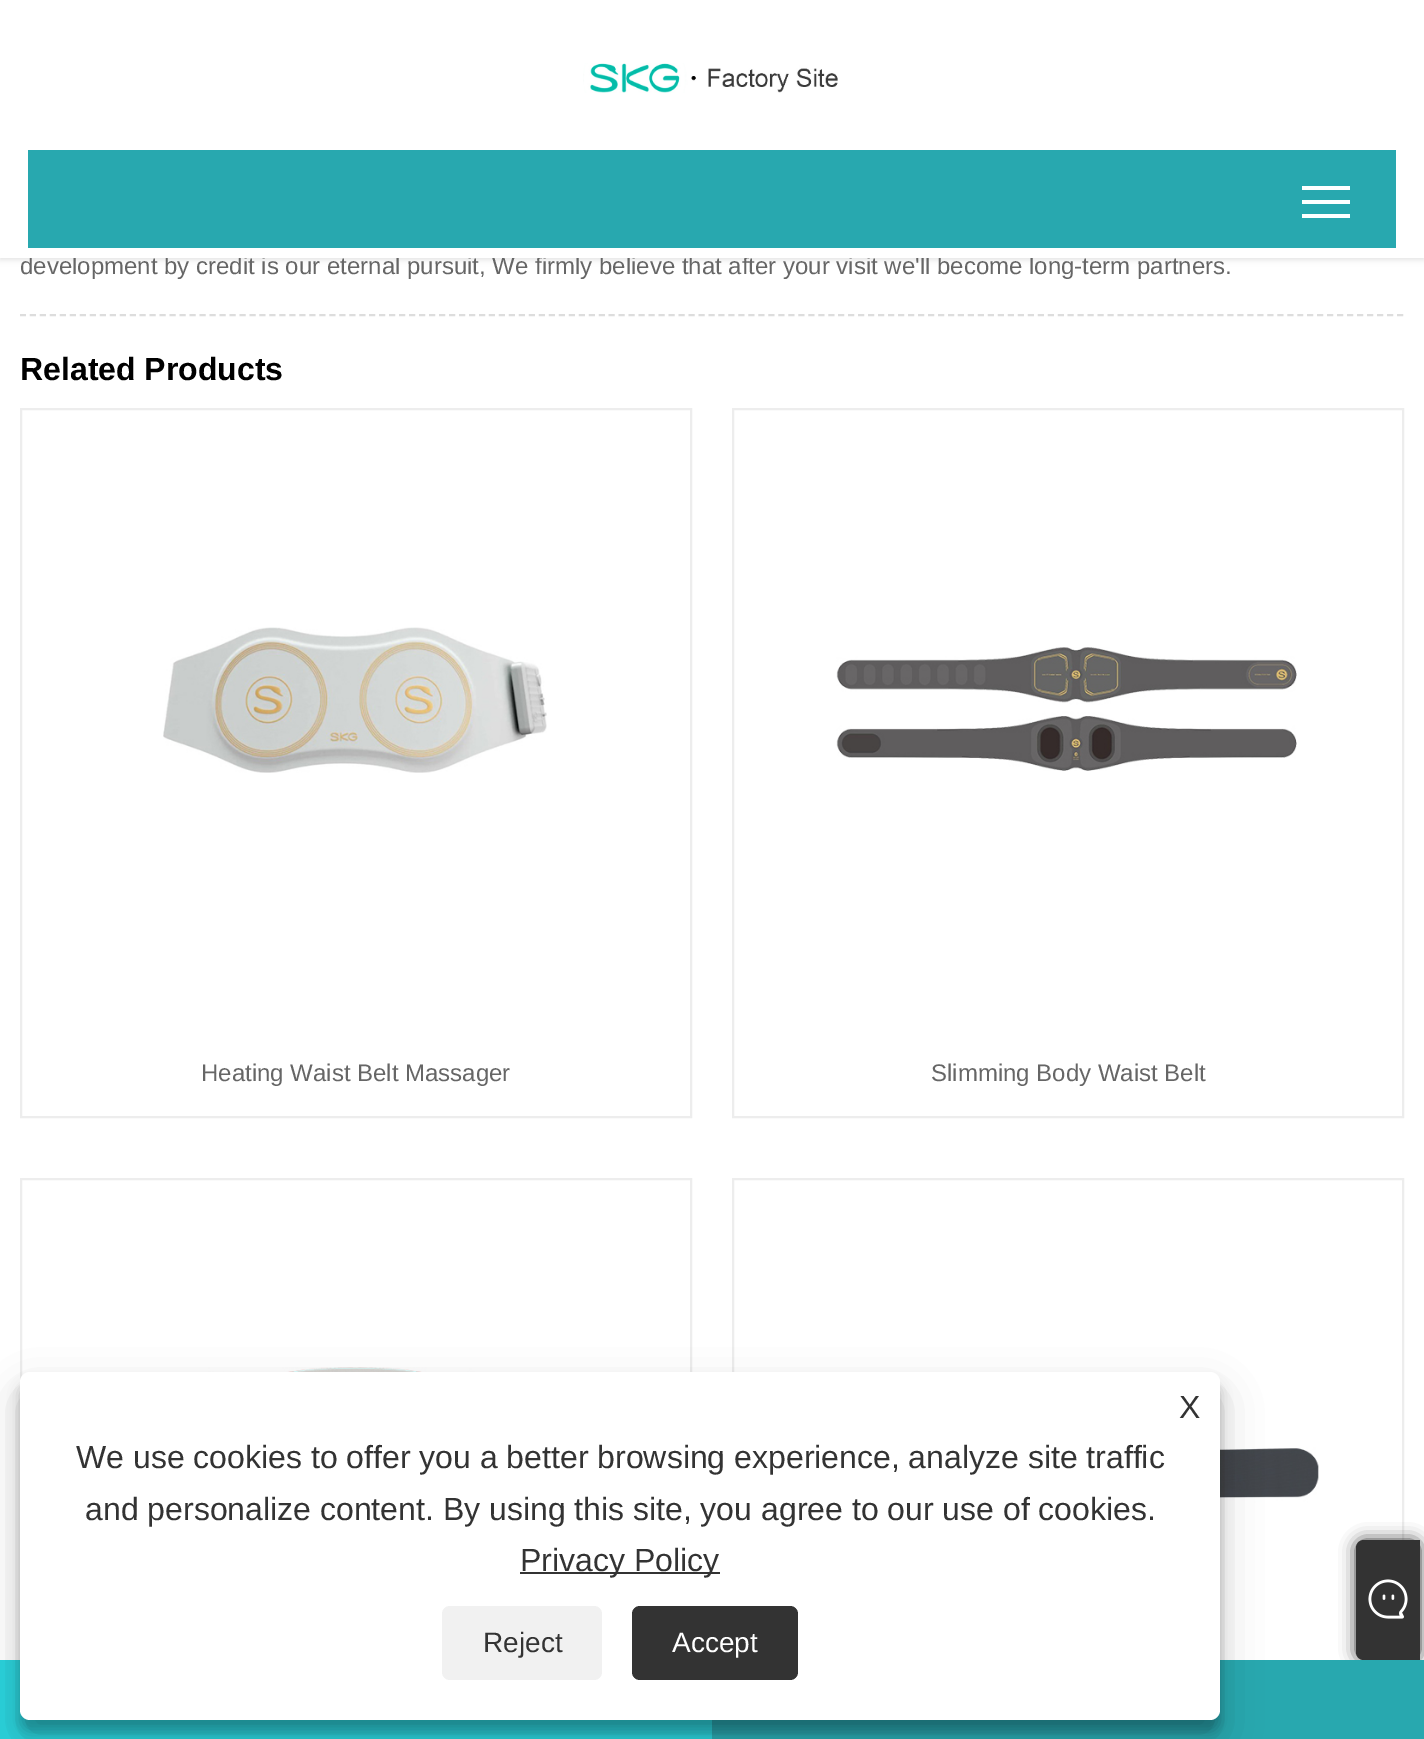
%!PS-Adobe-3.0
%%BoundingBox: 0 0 1424 1739
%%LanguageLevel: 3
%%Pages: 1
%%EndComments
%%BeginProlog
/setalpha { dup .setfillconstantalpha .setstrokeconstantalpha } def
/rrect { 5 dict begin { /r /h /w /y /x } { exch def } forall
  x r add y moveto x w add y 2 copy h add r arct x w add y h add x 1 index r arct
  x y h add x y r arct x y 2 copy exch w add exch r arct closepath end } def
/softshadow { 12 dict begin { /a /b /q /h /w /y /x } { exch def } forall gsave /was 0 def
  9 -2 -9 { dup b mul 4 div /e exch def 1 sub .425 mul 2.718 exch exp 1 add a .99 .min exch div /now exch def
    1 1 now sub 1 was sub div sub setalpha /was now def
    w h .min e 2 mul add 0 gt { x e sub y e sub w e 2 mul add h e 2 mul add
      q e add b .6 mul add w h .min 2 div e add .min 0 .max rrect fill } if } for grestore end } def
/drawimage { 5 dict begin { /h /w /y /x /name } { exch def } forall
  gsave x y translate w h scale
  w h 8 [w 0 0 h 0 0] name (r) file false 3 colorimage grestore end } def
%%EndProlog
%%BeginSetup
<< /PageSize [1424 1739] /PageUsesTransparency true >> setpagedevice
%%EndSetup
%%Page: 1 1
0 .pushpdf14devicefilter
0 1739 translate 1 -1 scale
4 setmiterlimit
1 setgray
0 0 1424 1739 rectfill
0 setgray
0 2 1424 258 0 3 0.11 softshadow
0.867 setgray
2 setlinewidth
[6 3.98] 0 setdash
newpath 20 315 moveto 1404 315 lineto stroke
0.929 setgray
[] 0 setdash
21 409 670 708 rectstroke
(images/2.raw) 163 627 384 146 drawimage
733 409 670 708 rectstroke
(images/3.raw) 836 647 461 124 drawimage
21 1179 670 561 rectstroke
(images/4.raw) 190 1367 329 5 drawimage
733 1179 670 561 rectstroke
(images/5.raw) 1220 1437 99 105 drawimage
0.165 0.827 0.863 setrgbcolor
0 1660 712 79 rectfill
0.2 setgray
1356 1540 64 120 8 8 1 softshadow
0.157 0.659 0.686 setrgbcolor
712 1660 712 79 rectfill
0 setgray
20 1384 1200 348 10 6 0.23 softshadow
20 1392 1200 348 10 20 0.19 softshadow
1 setgray
20 1372 1200 348 10 rrect fill
0.2 setgray
520 1572 200 2 rectfill
0.945 setgray
442 1606 160 74 8 rrect fill
0.2 setgray
632 1606 166 74 8 rrect fill
newpath 1364 1540 moveto 1420 1540 lineto 1420 1660 lineto 1364 1660 lineto 1359.5 1660 1356 1656.5 1356 1652 curveto 1356 1548 lineto 1356 1543.5 1359.5 1540 1364 1540 curveto closepath fill
(images/6.raw) 1368 1579 40 40 drawimage
/LiberationSans-Regular [24 0 0 -24 0 0] selectfont
0.4 setgray
20 274 moveto (development by credit is our eternal pursuit, We firmly believe that after your visit we'll become long-term partners.) show
1 setgray
0 0 1424 258 rectfill
0.157 0.659 0.686 setrgbcolor
28 150 1368 98 rectfill
1 setgray
1302 214 48 4 rectfill
1302 186 48 4 rectfill
1302 200 48 4 rectfill
(images/1.raw) 583 63 255 30 drawimage
/LiberationSans-Bold [32 0 0 -32 0 0] selectfont
0 setgray
20 380 moveto (Related Products) show
/LiberationSans-Regular [24 0 0 -24 0 0] selectfont
0.4 setgray
201 1081 moveto (Heating Waist Belt Massager) show
931 1081 moveto (Slimming Body Waist Belt) show
/LiberationSans-Regular [32 0 0 -32 0 0] selectfont
0.2 setgray
1179 1418 moveto (X) show
76 1468 moveto (We use cookies to offer you a better browsing experience, analyze site traffic) show
85 1520 moveto (and personalize content. By using this site, you agree to our use of cookies.) show
520 1571 moveto (Privacy Policy) show
/LiberationSans-Regular [28 0 0 -28 0 0] selectfont
483 1652 moveto (Reject) show
1 setgray
672 1652 moveto (Accept) show
.poppdf14devicefilter showpage
%%EOF
